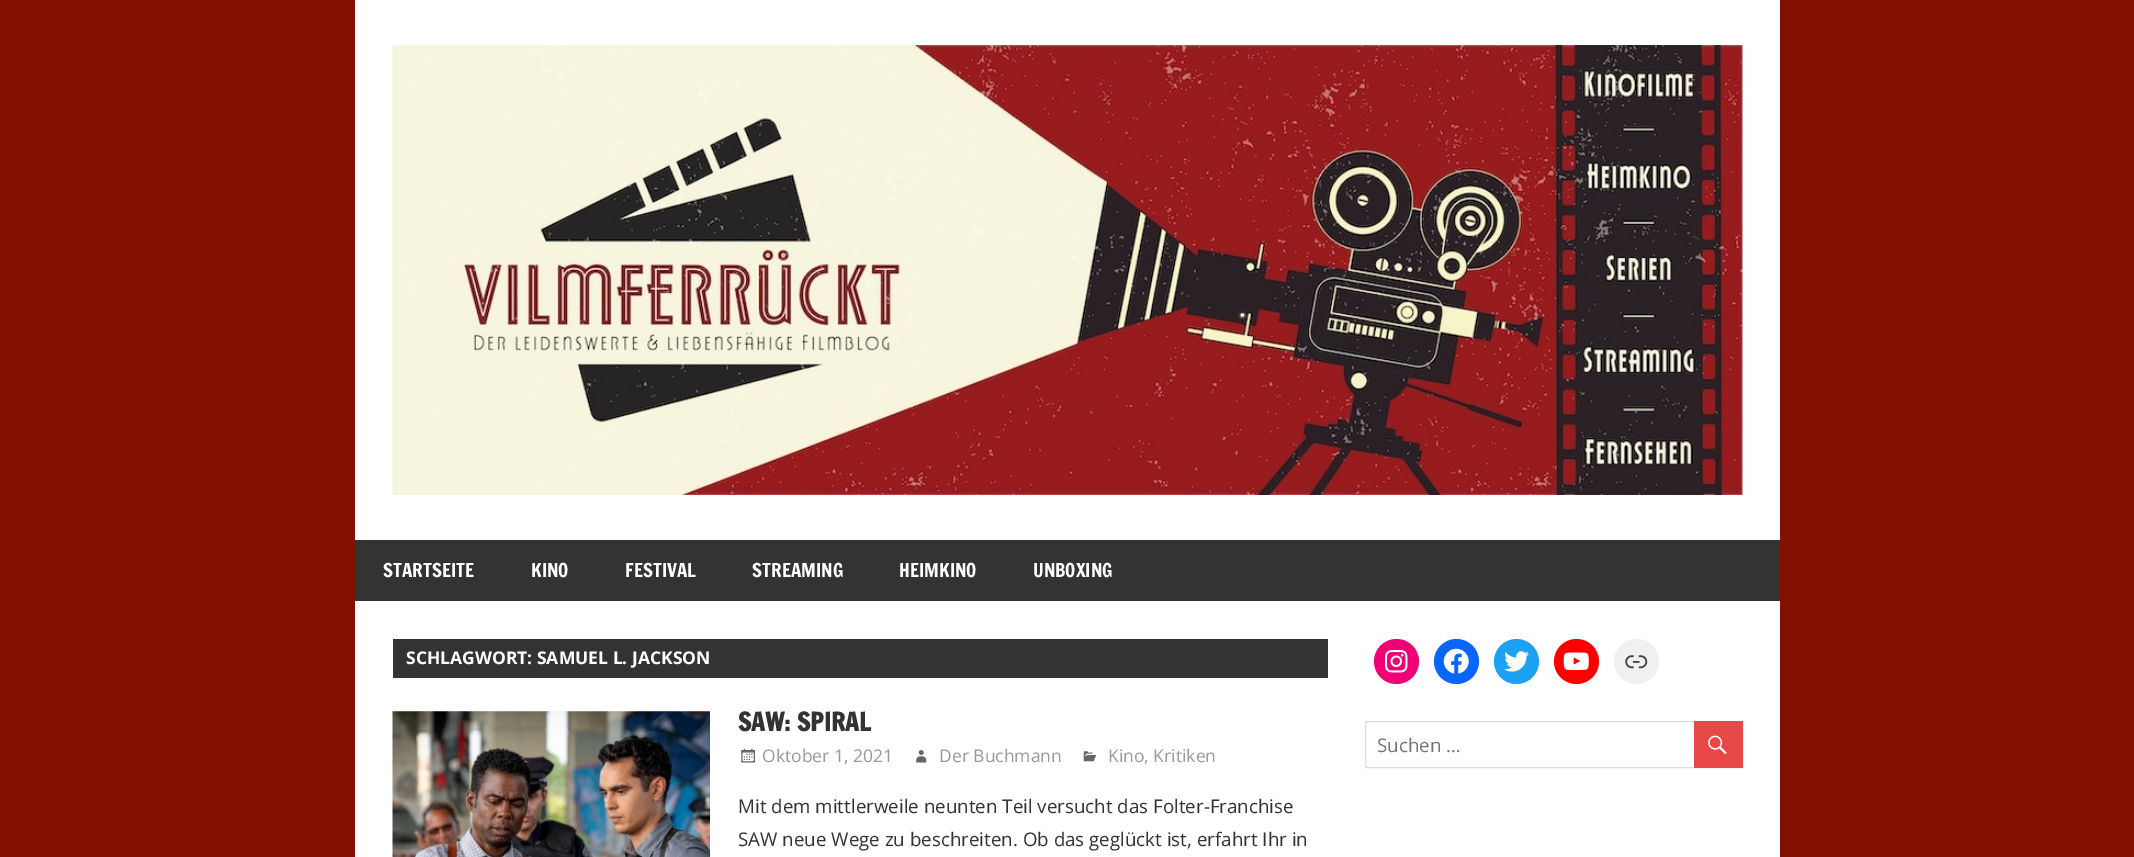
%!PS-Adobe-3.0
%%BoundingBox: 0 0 2134 857
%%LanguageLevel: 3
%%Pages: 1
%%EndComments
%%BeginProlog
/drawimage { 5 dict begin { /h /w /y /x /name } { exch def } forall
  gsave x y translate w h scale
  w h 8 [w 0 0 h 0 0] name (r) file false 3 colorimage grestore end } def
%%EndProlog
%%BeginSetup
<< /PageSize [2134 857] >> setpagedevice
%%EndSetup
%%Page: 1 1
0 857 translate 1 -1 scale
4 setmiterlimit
0.51 0.067 0 setrgbcolor
0 0 2134 857 rectfill
1 setgray
355 0 1425 857 rectfill
(images/1.raw) 392 45 1351 450 drawimage
0.2 setgray
355 540 1425 61 rectfill
393 639 935 39 rectfill
(images/2.raw) 392 711 318 146 drawimage
(images/3.raw) 741 748 14 15 drawimage
(images/4.raw) 916 750 11 13 drawimage
(images/5.raw) 1083 751 14 11 drawimage
0.941 0 0.459 setrgbcolor
newpath 1396.5 661.5 22.5 0 360 arc closepath fill
(images/6.raw) 1385 650 23 23 drawimage
0.031 0.4 1 setrgbcolor
newpath 1456.5 661.5 22.5 0 360 arc closepath fill
(images/7.raw) 1443 648 26 26 drawimage
0.114 0.631 0.949 setrgbcolor
newpath 1516.5 661.5 22.5 0 360 arc closepath fill
(images/8.raw) 1504 651 25 21 drawimage
1 0 0 setrgbcolor
newpath 1576.5 661.5 22.5 0 360 arc closepath fill
(images/9.raw) 1563 652 26 19 drawimage
0.941 setgray
newpath 1636.5 661.5 22.5 0 360 arc closepath fill
(images/10.raw) 1625 655 23 14 drawimage
0.867 setgray
1365.5 721.5 377 46 rectstroke
0.91 0.278 0.278 setrgbcolor
1694 721 49 47 rectfill
(images/11.raw) 1708 735 19 20 drawimage
/FrancoisOne-Regular [18.75 0 0 -18.75 0 0] selectfont
1 setgray
383 577 moveto (STARTSEITE) show
531 577 moveto (KINO) show
625 577 moveto (FESTIVAL) show
752 577 moveto (STREAMING) show
899 577 moveto (HEIMKINO) show
1033 577 moveto (UNBOXING) show
/OpenSans-Bold [17.5 0 0 -17.5 0 0] selectfont
406 664 moveto (SCHLAGWORT: SAMUEL L. JACKSON) show
/FrancoisOne-Bold [25 0 0 -25 0 0] selectfont
0.2 setgray
738 731 moveto (SAW: SPIRAL) show
/OpenSans-Regular [17.5 0 0 -17.5 0 0] selectfont
0.6 setgray
762 762 moveto (Oktober 1, 2021) show
939 762 moveto (Der Buchmann) show
1108 762 moveto (Kino, Kritiken) show
/OpenSans-Regular [18.75 0 0 -18.75 0 0] selectfont
0.2 setgray
738 813 moveto (Mit dem mittlerweile neunten Teil versucht das Folter-Franchise) show
738 846 moveto (SAW neue Wege zu beschreiten. Ob das geglückt ist, erfahrt Ihr in) show
0.459 setgray
1377 752 moveto (Suchen …) show
showpage
%%EOF
